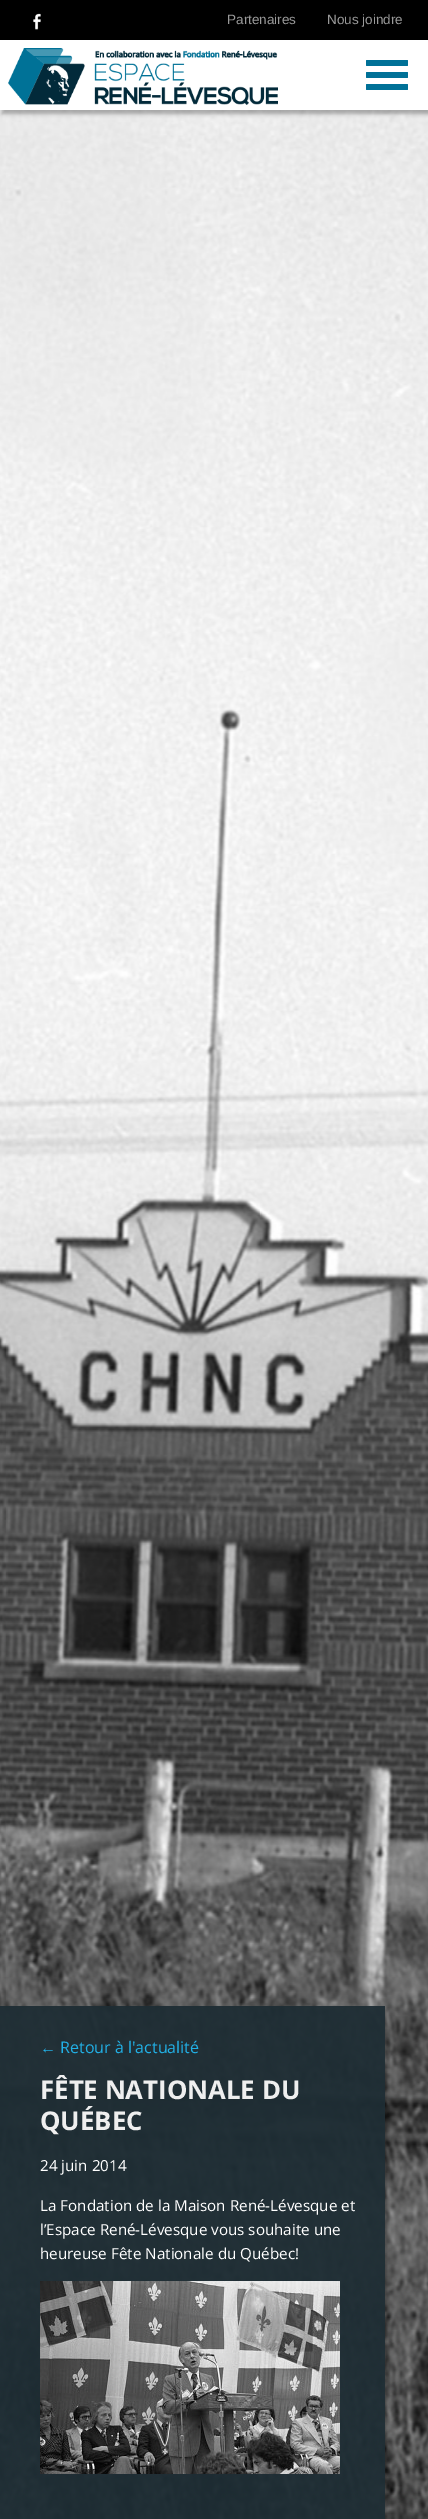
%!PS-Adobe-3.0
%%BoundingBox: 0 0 428 2519
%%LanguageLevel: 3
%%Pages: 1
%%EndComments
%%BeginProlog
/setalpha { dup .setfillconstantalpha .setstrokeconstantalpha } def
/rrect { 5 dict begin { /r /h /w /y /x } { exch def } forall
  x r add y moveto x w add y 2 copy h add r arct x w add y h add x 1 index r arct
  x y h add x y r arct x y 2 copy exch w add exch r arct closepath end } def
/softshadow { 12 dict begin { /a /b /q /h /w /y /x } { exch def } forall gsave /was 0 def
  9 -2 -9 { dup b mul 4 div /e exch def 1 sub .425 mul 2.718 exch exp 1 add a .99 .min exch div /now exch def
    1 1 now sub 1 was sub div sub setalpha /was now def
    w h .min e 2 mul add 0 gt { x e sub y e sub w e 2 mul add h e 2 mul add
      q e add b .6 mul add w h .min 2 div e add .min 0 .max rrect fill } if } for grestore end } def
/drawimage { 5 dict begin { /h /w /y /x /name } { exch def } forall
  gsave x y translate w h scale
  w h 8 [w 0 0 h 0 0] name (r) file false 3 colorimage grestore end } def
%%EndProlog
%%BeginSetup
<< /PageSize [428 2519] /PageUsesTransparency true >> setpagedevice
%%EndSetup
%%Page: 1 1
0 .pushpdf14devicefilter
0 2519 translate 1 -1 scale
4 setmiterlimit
0 setgray
0 0 428 2519 rectfill
(images/1.raw) 33 13 8 17 drawimage
(images/3.raw) 0 110 428 2409 drawimage
2 44 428 70 0 2 0.3 softshadow
1 setgray
0 40 428 70 rectfill
(images/2.raw) 8 48 270 57 drawimage
0 0.443 0.592 setrgbcolor
366 60 42 6 1 rrect fill
366 72 42 6 1 rrect fill
366 84 42 6 1 rrect fill
gsave
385 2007 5 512 rectclip
0 setgray
2 2010 385 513 0 2 0.3 softshadow
grestore
0.95 setalpha
0.118 0.176 0.204 setrgbcolor
0 2006 385 513 rectfill
1 setalpha
(images/4.raw) 40 2281 300 193 drawimage
/LiberationSans-Regular [13.5 0 0 -13.5 0 0] selectfont
0.6 setgray
227 24 moveto (Partenaires) show
327 24 moveto (Nous joindre) show
/LiberationSans-Regular [16 0 0 -16 0 0] selectfont
0.129 0.694 0.906 setrgbcolor
40 2053 moveto (←) show
/OpenSans-Regular [16 0 0 -16 0 0] selectfont
60 2053 moveto (Retour à l'actualité) show
/OpenSans-Bold [25.75 0 0 -25.75 0 0] selectfont
0.937 setgray
40 2099 moveto (FÊTE NATIONALE DU) show
40 2130 moveto (QUÉBEC) show
/OpenSans-Regular [15.2 0 0 -15.2 0 0] selectfont
1 setgray
40 2171 moveto (24 juin 2014) show
40 2211 moveto (La Fondation de la Maison René-Lévesque et) show
40 2235 moveto (l’Espace René-Lévesque vous souhaite une) show
40 2259 moveto (heureuse Fête Nationale du Québec!) show
.poppdf14devicefilter showpage
%%EOF
